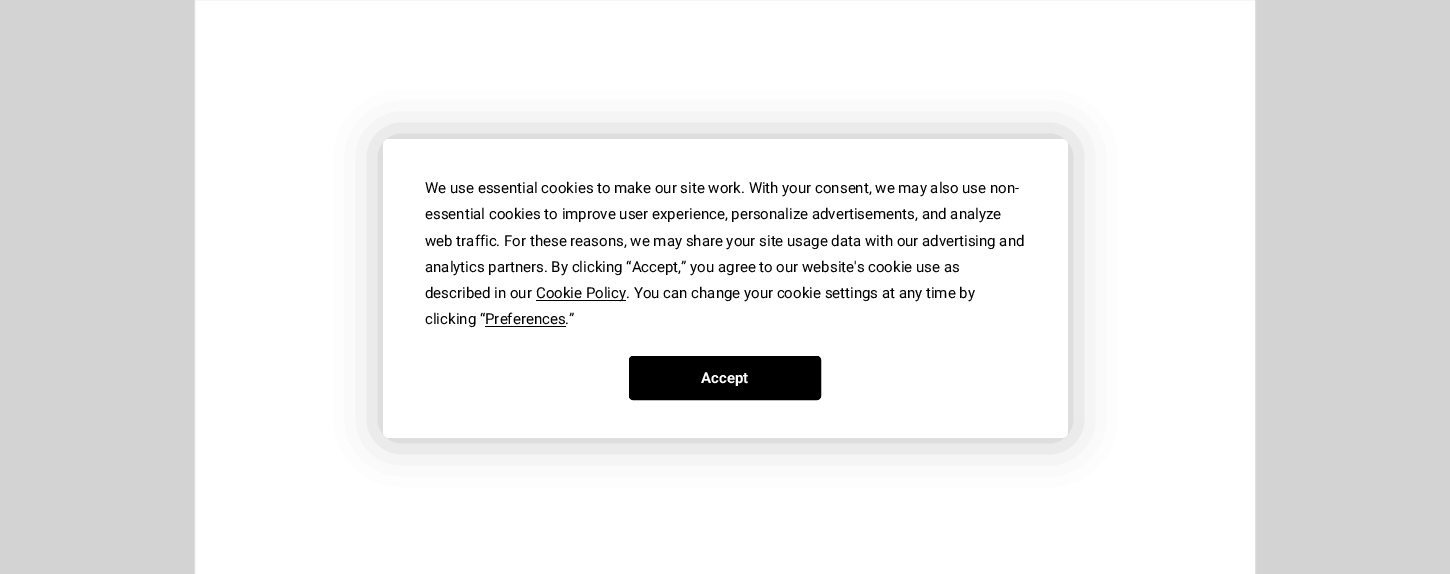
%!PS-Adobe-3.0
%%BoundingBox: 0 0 1450 574
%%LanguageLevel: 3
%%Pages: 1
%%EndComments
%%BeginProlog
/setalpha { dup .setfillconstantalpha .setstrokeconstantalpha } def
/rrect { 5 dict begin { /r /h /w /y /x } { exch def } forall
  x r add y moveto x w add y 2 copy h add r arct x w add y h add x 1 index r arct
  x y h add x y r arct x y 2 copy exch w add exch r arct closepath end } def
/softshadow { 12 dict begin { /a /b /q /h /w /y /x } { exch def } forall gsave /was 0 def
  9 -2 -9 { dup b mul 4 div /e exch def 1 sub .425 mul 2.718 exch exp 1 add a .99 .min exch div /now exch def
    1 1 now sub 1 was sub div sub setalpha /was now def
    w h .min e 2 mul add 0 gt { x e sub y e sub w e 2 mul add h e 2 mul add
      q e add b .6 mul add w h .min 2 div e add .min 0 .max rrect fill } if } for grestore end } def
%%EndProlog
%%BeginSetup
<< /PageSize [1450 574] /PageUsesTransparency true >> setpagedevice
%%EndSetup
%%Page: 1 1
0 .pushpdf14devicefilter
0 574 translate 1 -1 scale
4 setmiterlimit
0.827 setgray
0 0 1450 574 rectfill
1 setgray
newpath 194.5 -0.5 moveto 1255.5 -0.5 lineto 1255.5 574.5 lineto 194.5 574.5 lineto closepath gsave fill grestore
0.875 setgray
stroke
0 setgray
383 139 685 299 6 22 0.25 softshadow
1 setgray
383 139 685 299 6 rrect fill
0 setgray
536 300 90 1 rectfill
485 326 81 1 rectfill
629.5 356.5 191 43 3.5 rrect gsave fill grestore
stroke
/Roboto-Regular [15 0 0 -15 0 0] selectfont
425 193 moveto (We use essential cookies to make our site work. With your consent, we may also use non-) show
425 219 moveto (essential cookies to improve user experience, personalize advertisements, and analyze) show
425 246 moveto (web traffic. For these reasons, we may share your site usage data with our advertising and) show
425 272 moveto (analytics partners. By clicking “Accept,” you agree to our website's cookie use as) show
425 298 moveto (described in our) show
536 298 moveto (Cookie Policy. You can change your cookie settings at any time by) show
425 324 moveto (clicking “Preferences.”) show
/Roboto-Bold [15 0 0 -15 0 0] selectfont
1 setgray
701 383 moveto (Accept) show
.poppdf14devicefilter showpage
%%EOF
